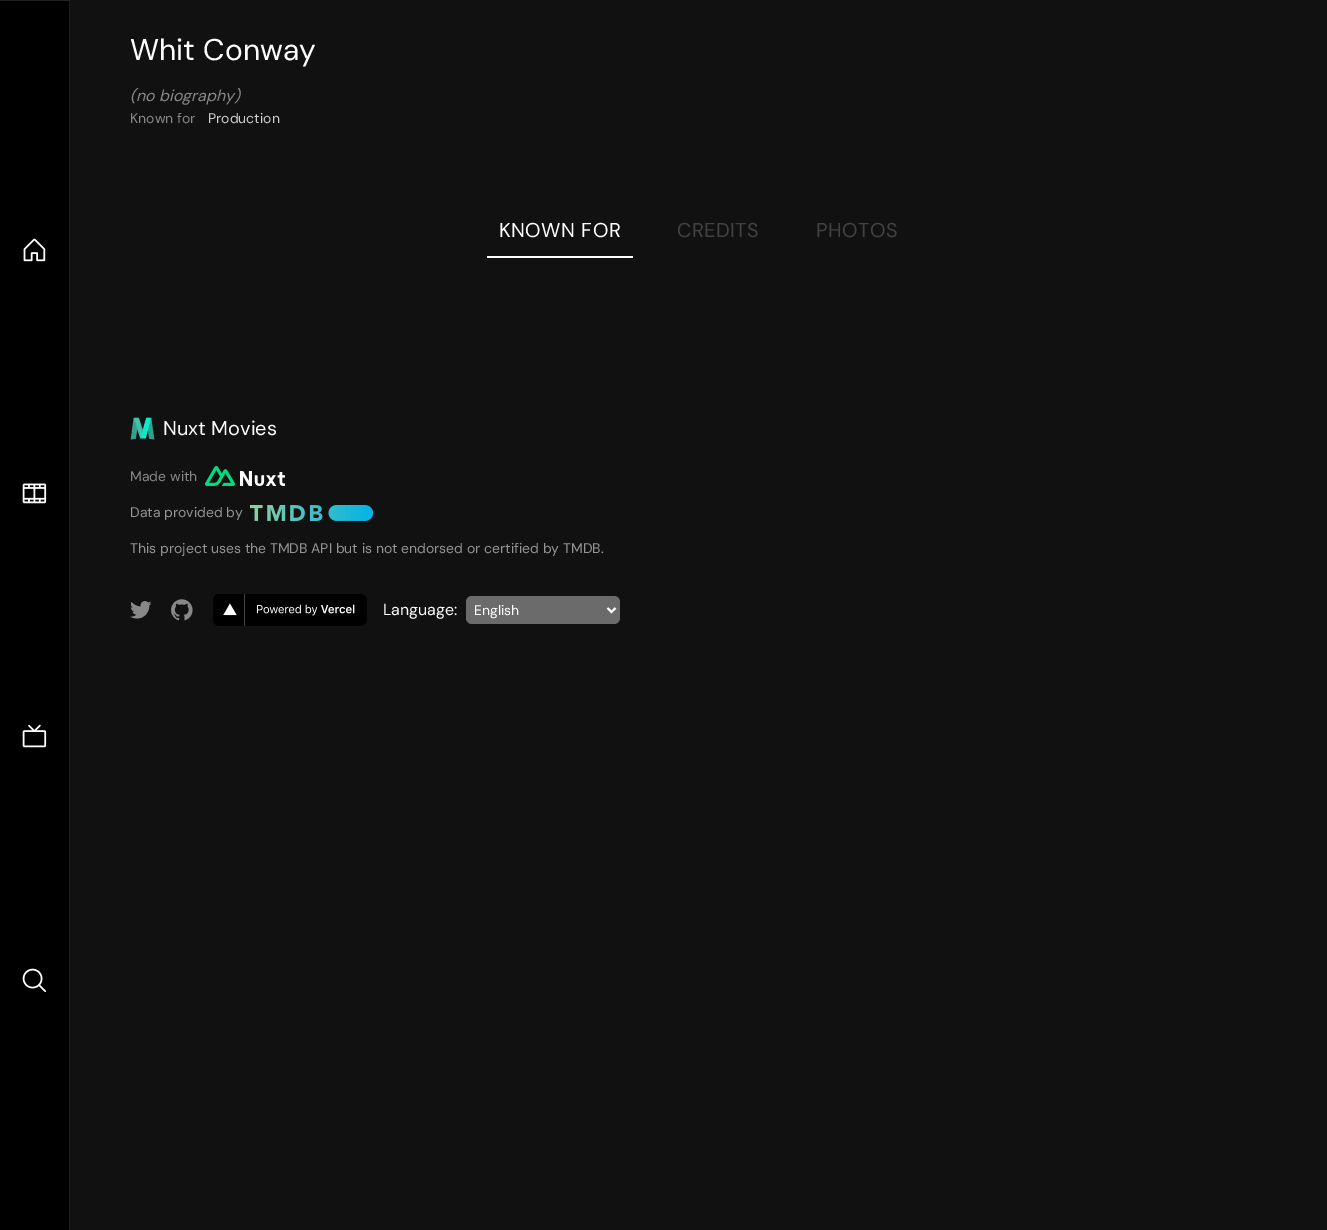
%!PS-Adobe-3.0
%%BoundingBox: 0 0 1327 1230
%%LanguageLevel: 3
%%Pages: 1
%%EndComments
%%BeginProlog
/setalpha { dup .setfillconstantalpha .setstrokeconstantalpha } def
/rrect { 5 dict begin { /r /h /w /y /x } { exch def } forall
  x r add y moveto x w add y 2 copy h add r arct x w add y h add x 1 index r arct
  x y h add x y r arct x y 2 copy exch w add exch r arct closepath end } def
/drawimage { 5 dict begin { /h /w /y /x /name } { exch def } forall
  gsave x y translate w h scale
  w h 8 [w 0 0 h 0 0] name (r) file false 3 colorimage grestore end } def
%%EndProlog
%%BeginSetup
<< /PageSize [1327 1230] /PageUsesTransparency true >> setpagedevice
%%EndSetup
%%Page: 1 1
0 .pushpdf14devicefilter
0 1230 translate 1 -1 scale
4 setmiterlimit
0.067 setgray
0 0 1327 1230 rectfill
0 setgray
0 0 70 1230 rectfill
0.122 0.129 0.137 setrgbcolor
newpath 0 0 moveto 70 0 lineto 69 1 lineto 0 1 lineto closepath fill
0.2 setalpha
0.612 0.639 0.686 setrgbcolor
newpath 70 0 moveto 70 1230 lineto 69 1230 lineto 69 1 lineto closepath fill
1 setalpha
(images/1.raw) 23 238 23 24 drawimage
(images/2.raw) 22 483 25 21 drawimage
(images/3.raw) 22 724 25 24 drawimage
(images/4.raw) 22 968 25 24 drawimage
1 setgray
487 256 146 2 rectfill
(images/5.raw) 130 417 25 23 drawimage
(images/6.raw) 205 466 80 20 drawimage
(images/7.raw) 250 505 123 16 drawimage
(images/8.raw) 130 601 21 18 drawimage
(images/9.raw) 171 599 22 22 drawimage
(images/10.raw) 213 594 154 32 drawimage
0.42 setgray
466 596 154 28 6 rrect fill
1 setgray
2 setlinewidth
newpath 607.5 608 moveto 611.5 612 lineto 615.5 608 lineto stroke
/DMSans-Regular [30 0 0 -30 0 0] selectfont
130 60 moveto (Whit Conway) show
/DMSans-Italic [16 0 0 -16 0 0] selectfont
0.533 setgray
130 101 moveto (\(no biography\)) show
/DMSans-Regular [14 0 0 -14 0 0] selectfont
130 123 moveto (Known for) show
0.812 setgray
208 123 moveto (Production) show
/DMSans-Regular [20 0 0 -20 0 0] selectfont
1 setgray
499 237 moveto 0.5 0 (KNOWN FOR) ashow
0.255 setgray
677 237 moveto 0.5 0 (CREDITS) ashow
816 237 moveto 0.5 0 (PHOTOS) ashow
1 setgray
163 435 moveto (Nuxt Movies) show
/DMSans-Regular [14 0 0 -14 0 0] selectfont
0.533 setgray
130 481 moveto (Made with) show
0.58 setgray
130 517 moveto (Data provided by) show
130 553 moveto (This project uses the TMDB API but is not endorsed or certified by TMDB.) show
/DMSans-Regular [16 0 0 -16 0 0] selectfont
1 setgray
383 615 moveto (Language:) show
/DMSans-Regular [14 0 0 -14 0 0] selectfont
474 615 moveto (English) show
.poppdf14devicefilter showpage
%%EOF
